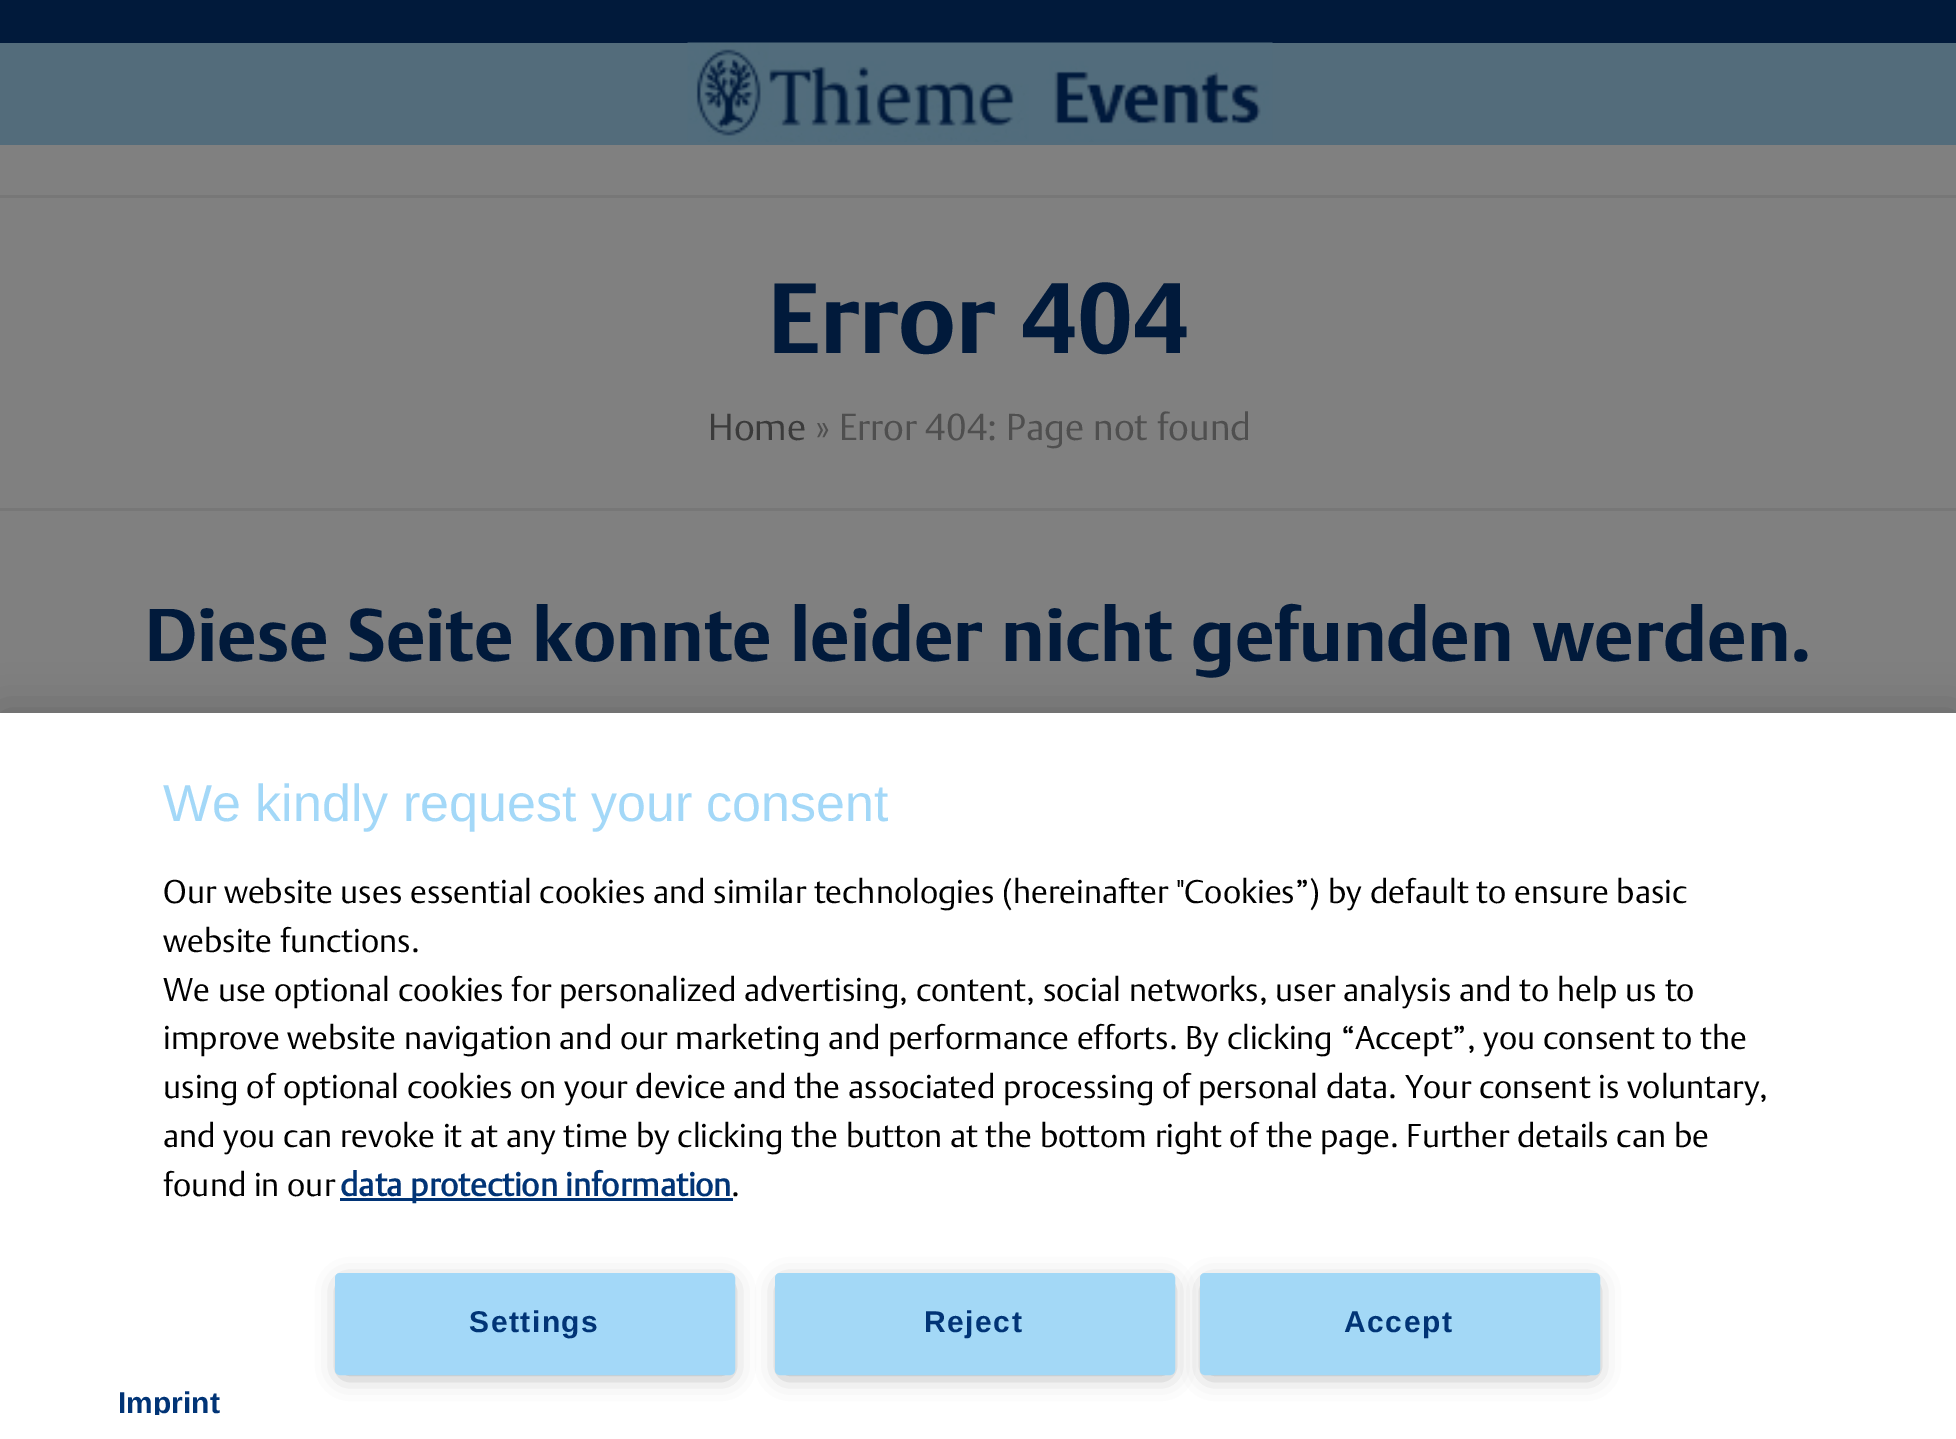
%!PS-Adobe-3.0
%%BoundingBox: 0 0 1956 1439
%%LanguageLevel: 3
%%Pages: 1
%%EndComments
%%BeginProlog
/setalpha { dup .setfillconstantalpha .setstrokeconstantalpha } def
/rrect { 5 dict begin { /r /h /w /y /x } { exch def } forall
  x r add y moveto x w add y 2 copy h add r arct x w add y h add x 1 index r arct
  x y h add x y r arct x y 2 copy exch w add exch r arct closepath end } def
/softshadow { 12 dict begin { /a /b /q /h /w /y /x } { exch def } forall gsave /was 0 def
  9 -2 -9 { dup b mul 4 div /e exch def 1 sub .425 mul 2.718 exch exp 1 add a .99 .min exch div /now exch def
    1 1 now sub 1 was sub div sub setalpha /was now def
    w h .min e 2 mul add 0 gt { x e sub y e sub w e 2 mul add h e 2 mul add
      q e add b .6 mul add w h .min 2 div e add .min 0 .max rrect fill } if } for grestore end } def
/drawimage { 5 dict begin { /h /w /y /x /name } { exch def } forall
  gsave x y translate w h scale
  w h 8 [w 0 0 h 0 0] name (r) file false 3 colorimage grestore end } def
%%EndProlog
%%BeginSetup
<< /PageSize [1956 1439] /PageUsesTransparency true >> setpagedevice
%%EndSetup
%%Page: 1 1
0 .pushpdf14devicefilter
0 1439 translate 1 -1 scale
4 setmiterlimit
0.502 setgray
0 0 1956 1439 rectfill
0.004 0.102 0.231 setrgbcolor
0 0 1956 43 rectfill
0.325 0.424 0.482 setrgbcolor
0 43 1956 102 rectfill
(images/1.raw) 687 42 586 100 drawimage
0.467 setgray
0 195 1956 3 rectfill
0 508 1956 3 rectfill
0 setgray
0 713 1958 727 0 22.5 0.2 softshadow
1 setgray
0 713 1956 726 rectfill
0.004 0.204 0.463 setrgbcolor
340 1198 393 3 rectfill
0.6 setgray
343 1285 385 88 0 12.5 1 softshadow
0.639 0.847 0.973 setrgbcolor
336.5 1274.5 397 99 3.5 rrect gsave fill grestore
3 setlinewidth
stroke
0.6 setgray
1208 1285 385 88 0 12.5 1 softshadow
0.639 0.847 0.965 setrgbcolor
1201.5 1274.5 397 99 3.5 rrect gsave fill grestore
stroke
0.6 setgray
783 1285 385 88 0 12.5 1 softshadow
0.639 0.847 0.965 setrgbcolor
776.5 1274.5 397 99 3.5 rrect gsave fill grestore
stroke
/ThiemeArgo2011-Bold [98.5 0 0 -98.5 0 0] selectfont
0.004 0.102 0.231 setrgbcolor
768 353 moveto (Error 404) show
/ThiemeArgo2011-Light [37 0 0 -37 0 0] selectfont
0.231 setgray
708 440 moveto (Home) show
0.31 setgray
815 440 moveto (» Error 404: Page not found) show
/ThiemeArgo2011-Bold [73.8 0 0 -73.8 0 0] selectfont
0.004 0.102 0.231 setrgbcolor
145 661 moveto -0.25 0 32 (Diese Seite konnte leider nicht gefunden werden.) widthshow
/LiberationSans-Regular [52 0 0 -52 0 0] selectfont
0.639 0.847 0.973 setrgbcolor
163 821 moveto (We kindly request your consent) show
/ThiemeArgo2011-Light [32.5 0 0 -32.5 0 0] selectfont
0 setgray
163 903 moveto (Our website uses essential cookies and similar technologies \(hereinafter "Cookies”\) by default to ensure basic) show
163 952 moveto (website functions.) show
163 1001 moveto (We use optional cookies for personalized advertising, content, social networks, user analysis and to help us to) show
163 1049 moveto (improve website navigation and our marketing and performance efforts. By clicking “Accept”, you consent to the) show
163 1098 moveto (using of optional cookies on your device and the associated processing of personal data. Your consent is voluntary,) show
163 1147 moveto (and you can revoke it at any time by clicking the button at the bottom right of the page. Further details can be) show
163 1196 moveto (found in our) show
/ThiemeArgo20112-Bold [32.5 0 0 -32.5 0 0] selectfont
0.004 0.204 0.463 setrgbcolor
340 1196 moveto (data protection information) show
/ThiemeArgo2011-Light [32.5 0 0 -32.5 0 0] selectfont
0 setgray
731 1196 moveto (.) show
gsave
0 763 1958 652 rectclip
/LiberationSans-Bold [30 0 0 -30 0 0] selectfont
0.004 0.204 0.463 setrgbcolor
118 1413 moveto (Imprint) show
grestore
/LiberationSans-Bold [30 0 0 -30 0 0] selectfont
0.004 0.204 0.463 setrgbcolor
469 1332 moveto 1.5 0 (Settings) ashow
924 1332 moveto 1.5 0 (Reject) ashow
1344 1332 moveto 1.5 0 (Accept) ashow
.poppdf14devicefilter showpage
%%EOF
